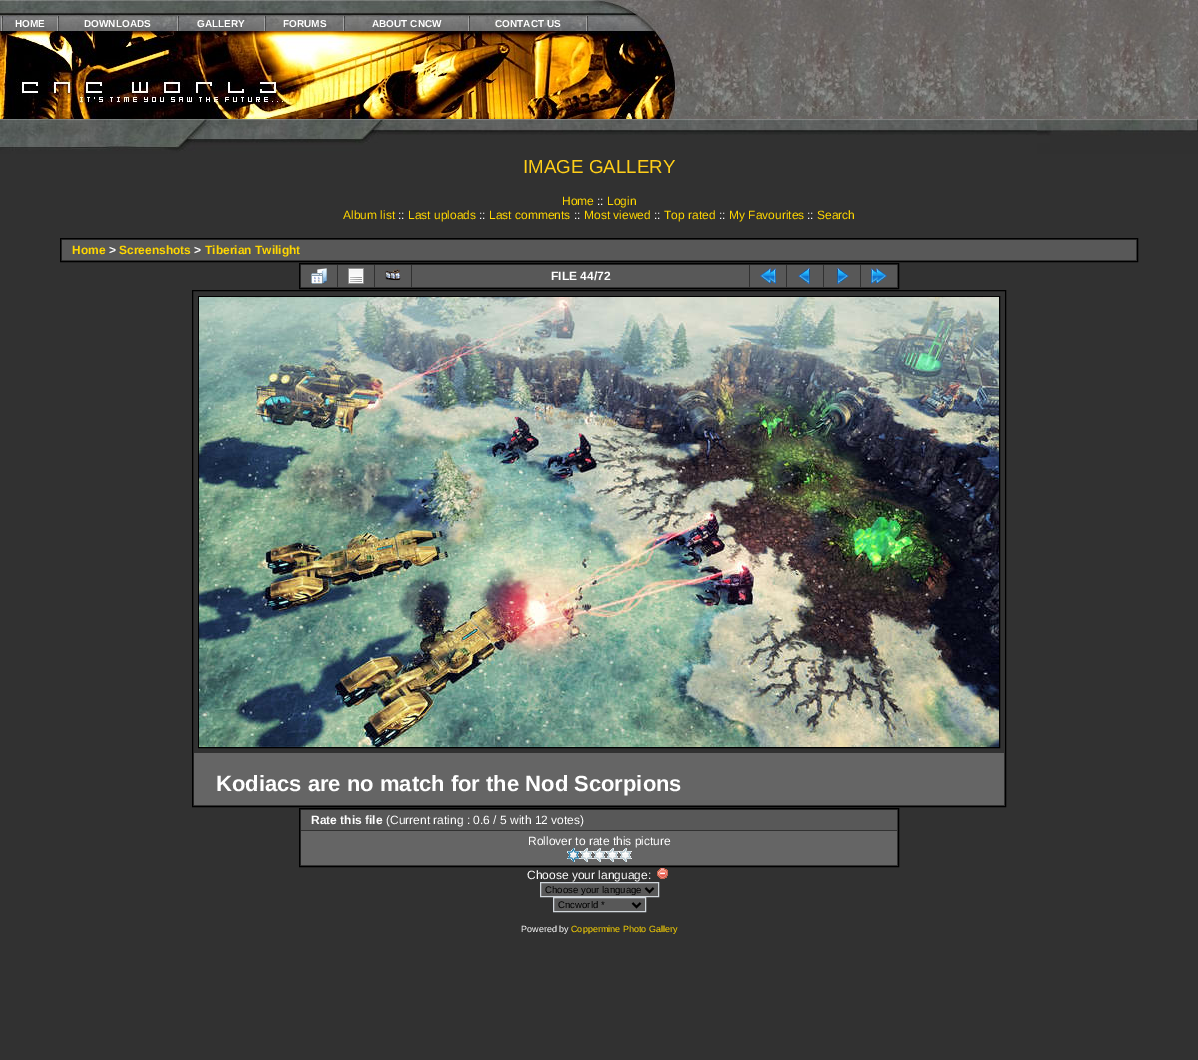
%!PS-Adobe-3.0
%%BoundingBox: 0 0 1198 1060
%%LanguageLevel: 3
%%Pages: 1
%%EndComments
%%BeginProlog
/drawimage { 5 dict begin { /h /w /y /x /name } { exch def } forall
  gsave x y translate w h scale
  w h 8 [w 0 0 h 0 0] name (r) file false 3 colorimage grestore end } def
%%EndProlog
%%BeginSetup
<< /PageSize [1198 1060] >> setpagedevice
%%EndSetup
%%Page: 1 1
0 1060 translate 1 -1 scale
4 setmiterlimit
0.192 setgray
0 0 1198 1060 rectfill
(images/1.raw) 0 0 589 16 drawimage
(images/2.raw) 0 16 589 15 drawimage
(images/3.raw) 1 16 2 15 drawimage
(images/3.raw) 57 16 2 15 drawimage
(images/3.raw) 177 16 2 15 drawimage
(images/3.raw) 264 16 2 15 drawimage
(images/3.raw) 343 16 2 15 drawimage
(images/3.raw) 468 16 2 15 drawimage
(images/3.raw) 586 16 2 15 drawimage
(images/4.raw) 0 31 296 88 drawimage
(images/5.raw) 296 31 293 88 drawimage
(images/6.raw) 589 0 90 119 drawimage
(images/7.raw) 679 0 519 119 drawimage
(images/8.raw) 0 119 179 35 drawimage
(images/9.raw) 179 119 433 32 drawimage
(images/10.raw) 612 119 425 16 drawimage
(images/11.raw) 1037 119 161 35 drawimage
0 setgray
60.5 238.5 1077 23 rectstroke
0.345 setgray
62 240 1074 20 rectfill
0 setgray
299.5 263.5 599 25 rectstroke
0.345 setgray
301 265 36 22 rectfill
(images/12.raw) 311 268 16 16 drawimage
338 265 36 22 rectfill
(images/13.raw) 348 268 16 16 drawimage
375 265 36 22 rectfill
(images/14.raw) 385 269 16 12 drawimage
412 265 337 22 rectfill
750 265 36 22 rectfill
(images/15.raw) 760 268 16 16 drawimage
787 265 36 22 rectfill
(images/16.raw) 798 268 12 16 drawimage
824 265 36 22 rectfill
(images/17.raw) 837 268 12 16 drawimage
861 265 36 22 rectfill
(images/18.raw) 871 268 16 16 drawimage
0 setgray
192.5 290.5 813 516 rectstroke
198.5 296.5 801 451 rectstroke
(images/19.raw) 199 297 800 450 drawimage
0.396 setgray
194 753 810 52 rectfill
0 setgray
299.5 808.5 599 58 rectstroke
0.345 setgray
301 810 596 20 rectfill
0.396 setgray
301 831 596 34 rectfill
(images/20.raw) 567 848 13 14 drawimage
(images/21.raw) 580 848 13 14 drawimage
(images/21.raw) 593 848 13 14 drawimage
(images/21.raw) 606 848 13 14 drawimage
(images/21.raw) 619 848 13 14 drawimage
(images/22.raw) 657 868 11 11 drawimage
0.345 setgray
newpath 540.5 882.5 moveto 658.5 882.5 lineto 658.5 896.5 lineto 540.5 896.5 lineto closepath gsave fill grestore
0.82 0.843 0.863 setrgbcolor
stroke
0 setgray
2 setlinewidth
newpath 645.5 888 moveto 649.5 892 lineto 653.5 888 lineto stroke
0.345 setgray
newpath 553.5 897.5 moveto 645.5 897.5 lineto 645.5 911.5 lineto 553.5 911.5 lineto closepath gsave fill grestore
0.82 0.843 0.863 setrgbcolor
1 setlinewidth
stroke
0 setgray
2 setlinewidth
newpath 632.5 903 moveto 636.5 907 lineto 640.5 903 lineto stroke
/LiberationSans-Bold [10 0 0 -10 0 0] selectfont
1 setgray
15 27 moveto (HOME) show
84 27 moveto (DOWNLOADS) show
197 27 moveto (GALLERY) show
283 27 moveto (FORUMS) show
372 27 moveto (ABOUT CNCW) show
495 27 moveto (CONTACT US) show
/LiberationSans-Regular [18.75 0 0 -18.75 0 0] selectfont
1 0.808 0.094 setrgbcolor
523 173 moveto (IMAGE GALLERY) show
/LiberationSans-Regular [12 0 0 -12 0 0] selectfont
1 0.843 0 setrgbcolor
562 205 moveto (Home) show
1 setgray
597 205 moveto (::) show
1 0.843 0 setrgbcolor
607 205 moveto (Login) show
343 219 moveto (Album list) show
1 setgray
398 219 moveto (::) show
1 0.843 0 setrgbcolor
408 219 moveto (Last uploads) show
1 setgray
479 219 moveto (::) show
1 0.843 0 setrgbcolor
489 219 moveto (Last comments) show
1 setgray
574 219 moveto (::) show
1 0.843 0 setrgbcolor
584 219 moveto (Most viewed) show
1 setgray
654 219 moveto (::) show
1 0.843 0 setrgbcolor
664 219 moveto (Top rated) show
1 setgray
719 219 moveto (::) show
1 0.843 0 setrgbcolor
729 219 moveto (My Favourites) show
1 setgray
807 219 moveto (::) show
1 0.843 0 setrgbcolor
817 219 moveto (Search) show
/LiberationSans-Bold [12 0 0 -12 0 0] selectfont
72 254 moveto (Home) show
1 setgray
109 254 moveto (>) show
1 0.843 0 setrgbcolor
119 254 moveto (Screenshots) show
1 setgray
194 254 moveto (>) show
1 0.843 0 setrgbcolor
205 254 moveto (Tiberian Twilight) show
1 setgray
551 280 moveto (FILE 44/72) show
/LiberationSans-Bold [22 0 0 -22 0 0] selectfont
216 791 moveto (Kodiacs are no match for the Nod Scorpions) show
/LiberationSans-Bold [12 0 0 -12 0 0] selectfont
311 824 moveto (Rate this file) show
/LiberationSans-Regular [12 0 0 -12 0 0] selectfont
386 824 moveto (\(Current rating : 0.6 / 5 with 12 votes\)) show
528 845 moveto (Rollover to rate this picture) show
527 879 moveto (Choose your language:) show
/LiberationSans-Regular [9.6 0 0 -9.6 0 0] selectfont
0 setgray
545 893 moveto (Choose your language) show
558 908 moveto (Cncworld *) show
/LiberationSans-Regular [9 0 0 -9 0 0] selectfont
1 setgray
521 932 moveto (Powered by) show
1 0.843 0 setrgbcolor
571 932 moveto (Coppermine Photo Gallery) show
showpage
%%EOF
